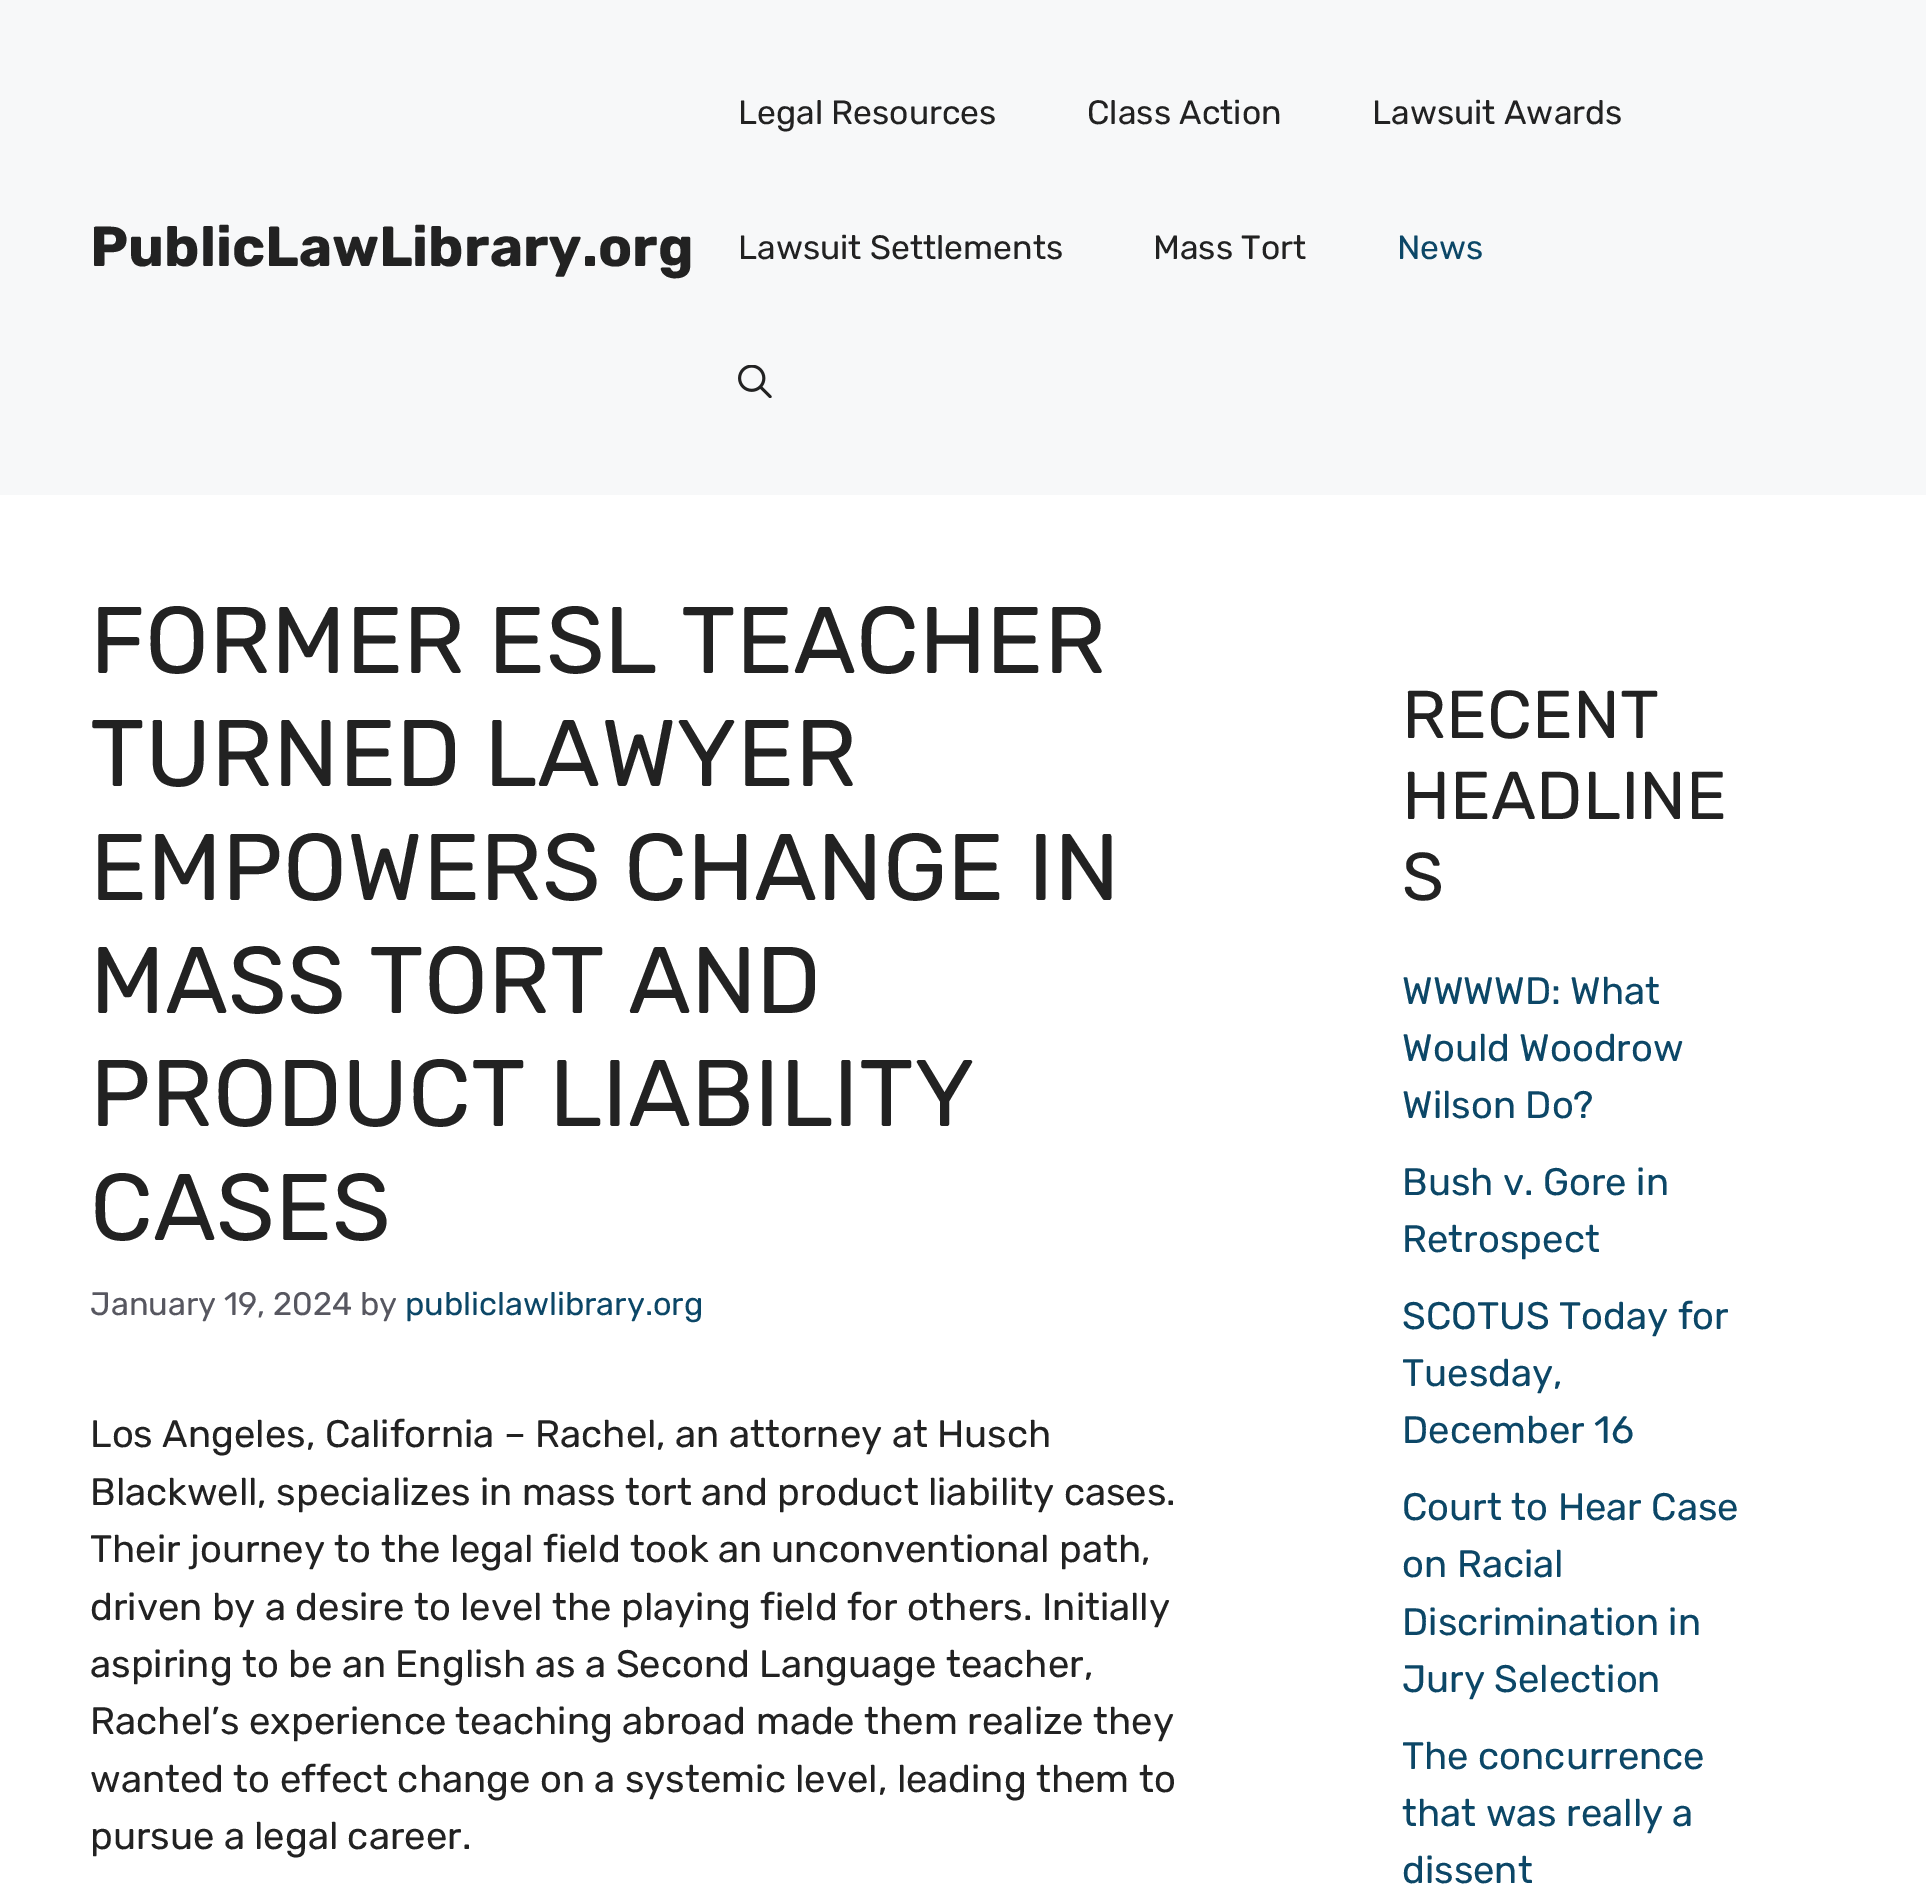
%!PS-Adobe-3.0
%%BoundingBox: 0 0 1926 1891
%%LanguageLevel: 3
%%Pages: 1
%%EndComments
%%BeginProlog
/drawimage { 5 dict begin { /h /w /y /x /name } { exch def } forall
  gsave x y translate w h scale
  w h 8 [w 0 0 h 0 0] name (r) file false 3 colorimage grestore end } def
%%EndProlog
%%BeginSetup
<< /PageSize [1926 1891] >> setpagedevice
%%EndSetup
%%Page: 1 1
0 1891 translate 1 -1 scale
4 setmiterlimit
1 setgray
0 0 1926 1891 rectfill
0.969 0.973 0.976 setrgbcolor
0 0 1926 495 rectfill
(images/1.raw) 738 365 34 33 drawimage
/Rubik-Bold [56.25 0 0 -56.25 0 0] selectfont
0.133 setgray
90 266 moveto (PublicLawLibrary.org) show
/Rubik-Regular [33.75 0 0 -33.75 0 0] selectfont
738 124 moveto (Legal Resources) show
1087 124 moveto (Class Action) show
1372 124 moveto (Lawsuit Awards) show
738 259 moveto (Lawsuit Settlements) show
1153 259 moveto (Mass Tort) show
0.047 0.278 0.404 setrgbcolor
1397 259 moveto (News) show
/Rubik-Regular [94.5 0 0 -94.5 0 0] selectfont
0.133 setgray
90 673 moveto (FORMER ESL TEACHER) show
90 786 moveto (TURNED LAWYER) show
90 900 moveto (EMPOWERS CHANGE IN) show
90 1013 moveto (MASS TORT AND) show
90 1126 moveto (PRODUCT LIABILITY) show
90 1240 moveto (CASES) show
/Rubik-Regular [32.5 0 0 -32.5 0 0] selectfont
0.341 0.341 0.376 setrgbcolor
90 1315 moveto (January 19, 2024 by) show
0.047 0.278 0.404 setrgbcolor
405 1315 moveto (publiclawlibrary.org) show
/Rubik-Regular [38.25 0 0 -38.25 0 0] selectfont
0.133 setgray
90 1447 moveto (Los Angeles, California – Rachel, an attorney at Husch) show
90 1505 moveto (Blackwell, specializes in mass tort and product liability cases.) show
90 1562 moveto (Their journey to the legal field took an unconventional path,) show
90 1620 moveto (driven by a desire to level the playing field for others. Initially) show
90 1677 moveto (aspiring to be an English as a Second Language teacher,) show
90 1734 moveto (Rachel’s experience teaching abroad made them realize they) show
90 1792 moveto (wanted to effect change on a systemic level, leading them to) show
90 1849 moveto (pursue a legal career.) show
/Rubik-Regular [67.5 0 0 -67.5 0 0] selectfont
1402 738 moveto (RECENT) show
1402 819 moveto (HEADLINE) show
1402 900 moveto (S) show
/Rubik-Regular [38.25 0 0 -38.25 0 0] selectfont
0.047 0.278 0.404 setrgbcolor
1402 1004 moveto (WWWWD: What) show
1402 1061 moveto (Would Woodrow) show
1402 1118 moveto (Wilson Do?) show
1402 1195 moveto (Bush v. Gore in) show
1402 1252 moveto (Retrospect) show
1402 1329 moveto (SCOTUS Today for) show
1402 1386 moveto (Tuesday,) show
1402 1443 moveto (December 16) show
1402 1520 moveto (Court to Hear Case) show
1402 1577 moveto (on Racial) show
1402 1635 moveto (Discrimination in) show
1402 1692 moveto (Jury Selection) show
1402 1769 moveto (The concurrence) show
1402 1826 moveto (that was really a) show
1402 1883 moveto (dissent) show
showpage
%%EOF
